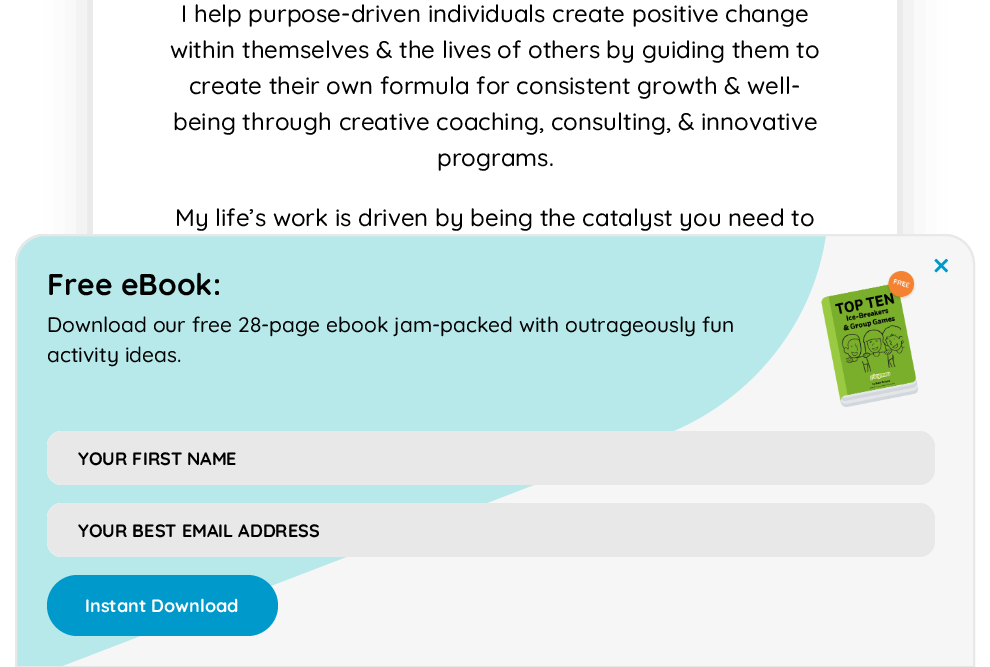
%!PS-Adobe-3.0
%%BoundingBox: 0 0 990 667
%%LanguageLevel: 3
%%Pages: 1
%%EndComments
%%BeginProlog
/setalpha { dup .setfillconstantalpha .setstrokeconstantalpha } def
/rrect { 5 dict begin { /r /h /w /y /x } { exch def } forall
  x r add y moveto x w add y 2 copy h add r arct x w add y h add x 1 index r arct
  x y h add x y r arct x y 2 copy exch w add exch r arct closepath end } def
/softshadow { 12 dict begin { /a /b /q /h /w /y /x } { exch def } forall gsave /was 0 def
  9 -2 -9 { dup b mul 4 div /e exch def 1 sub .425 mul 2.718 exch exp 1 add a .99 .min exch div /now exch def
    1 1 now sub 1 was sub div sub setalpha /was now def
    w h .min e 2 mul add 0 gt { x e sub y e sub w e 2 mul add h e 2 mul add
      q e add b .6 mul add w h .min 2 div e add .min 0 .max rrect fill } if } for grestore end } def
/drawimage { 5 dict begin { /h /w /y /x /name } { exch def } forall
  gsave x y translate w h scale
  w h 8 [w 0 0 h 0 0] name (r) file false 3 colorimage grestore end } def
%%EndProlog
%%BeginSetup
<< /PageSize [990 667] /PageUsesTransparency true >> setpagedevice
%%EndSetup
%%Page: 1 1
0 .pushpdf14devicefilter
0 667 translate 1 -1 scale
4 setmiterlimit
1 setgray
0 0 990 667 rectfill
gsave
newpath 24 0 moveto 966 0 lineto 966 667 lineto 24 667 lineto closepath 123 -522 moveto 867 -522 lineto 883.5 -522 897 -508.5 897 -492 curveto 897 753 lineto 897 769.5 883.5 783 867 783 curveto 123 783 lineto 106.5 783 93 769.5 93 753 curveto 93 -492 lineto 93 -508.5 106.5 -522 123 -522 curveto closepath eoclip newpath
0 setgray
93 -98 804 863 30 22.5 0.16 softshadow
grestore
0.965 setgray
newpath 45 234 moveto 945 234 lineto 961.5 234 975 247.5 975 264 curveto 975 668 lineto 15 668 lineto 15 264 lineto 15 247.5 28.5 234 45 234 curveto closepath fill
0.718 0.914 0.918 setrgbcolor
newpath 45 234 moveto 28 234 15 247 15 264 curveto 15 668 lineto 57 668 lineto 664 435 lineto 754 400 814 321 826 234 curveto closepath fill
0.91 setgray
2 setlinewidth
newpath 45 235 moveto 945 235 lineto 961 235 974 248 974 264 curveto 974 667 lineto 16 667 lineto 16 264 lineto 16 248 29 235 45 235 curveto closepath stroke
(images/1.raw) 934 258 14 15 drawimage
(images/2.raw) 821 270 98 137 drawimage
1 setgray
47 431 888 54 15 rrect fill
0.91 setgray
newpath 62 431 moveto 920 431 lineto 928 431 935 438 935 446 curveto 935 470 lineto 935 478 928 485 920 485 curveto 62 485 lineto 54 485 47 478 47 470 curveto 47 446 lineto 47 438 54 431 62 431 curveto closepath fill
1 setgray
47 503 888 54 15 rrect fill
0.91 setgray
newpath 62 503 moveto 920 503 lineto 928 503 935 510 935 518 curveto 935 542 lineto 935 550 928 557 920 557 curveto 62 557 lineto 54 557 47 550 47 542 curveto 47 518 lineto 47 510 54 503 62 503 curveto closepath fill
0 0.6 0.8 setrgbcolor
47 575 231 61 30.5 rrect fill
/Quicksand-Medium [24 0 0 -24 0 0] selectfont
0 setgray
181 22 moveto (I help purpose-driven individuals create positive change) show
170 58 moveto (within themselves & the lives of others by guiding them to) show
189 94 moveto (create their own formula for consistent growth & well-) show
173 130 moveto (being through creative coaching, consulting, & innovative) show
437 166 moveto (programs.) show
175 226 moveto (My life’s work is driven by being the catalyst you need to) show
/Quicksand-Bold [30 0 0 -30 0 0] selectfont
47 295 moveto (Free eBook:) show
/Quicksand-Medium [21 0 0 -21 0 0] selectfont
47 332 moveto (Download our free 28-page ebook jam-packed with outrageously fun) show
47 362 moveto (activity ideas.) show
/Quicksand-Bold [18 0 0 -18 0 0] selectfont
78 465 moveto (YOUR FIRST NAME) show
78 537 moveto (YOUR BEST EMAIL ADDRESS) show
1 setgray
85 612 moveto (Instant Download) show
.poppdf14devicefilter showpage
%%EOF
